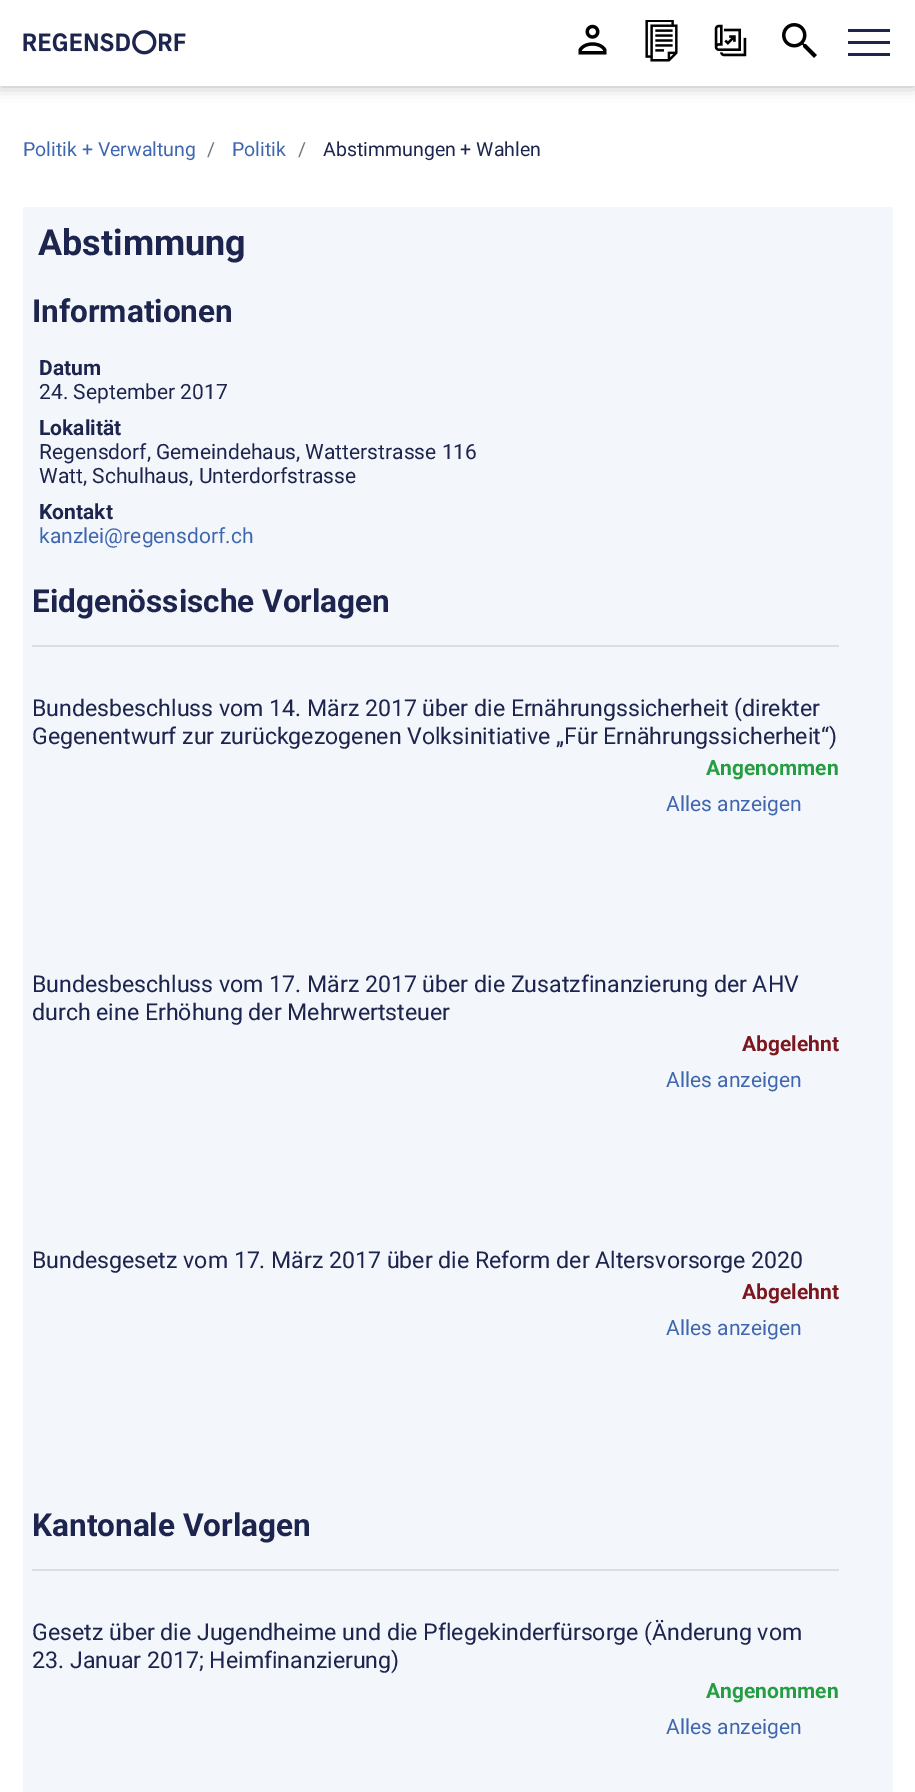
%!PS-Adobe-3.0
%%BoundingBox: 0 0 915 1792
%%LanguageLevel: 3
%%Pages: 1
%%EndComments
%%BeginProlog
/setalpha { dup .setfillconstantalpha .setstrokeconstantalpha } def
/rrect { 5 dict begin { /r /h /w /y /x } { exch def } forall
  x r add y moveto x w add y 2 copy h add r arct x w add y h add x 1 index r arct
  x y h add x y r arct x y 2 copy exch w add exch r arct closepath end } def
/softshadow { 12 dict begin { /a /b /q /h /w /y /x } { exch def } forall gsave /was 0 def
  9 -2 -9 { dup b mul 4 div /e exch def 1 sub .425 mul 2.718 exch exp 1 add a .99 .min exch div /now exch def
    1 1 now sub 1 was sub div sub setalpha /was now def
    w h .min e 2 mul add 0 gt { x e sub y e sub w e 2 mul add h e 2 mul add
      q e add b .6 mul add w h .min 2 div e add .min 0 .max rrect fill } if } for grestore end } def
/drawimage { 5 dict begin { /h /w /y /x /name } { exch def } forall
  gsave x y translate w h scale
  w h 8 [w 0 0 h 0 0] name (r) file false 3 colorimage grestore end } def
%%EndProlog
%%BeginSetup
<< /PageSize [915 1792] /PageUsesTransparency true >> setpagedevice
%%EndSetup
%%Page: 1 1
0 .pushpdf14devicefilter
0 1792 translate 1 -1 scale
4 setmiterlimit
1 setgray
0 0 915 1792 rectfill
0 setgray
0 0 915 86 0 7.5 0.3 softshadow
1 setgray
0 0 915 86 rectfill
(images/1.raw) 23 30 163 25 drawimage
(images/2.raw) 578 24 29 31 drawimage
(images/3.raw) 645 20 33 42 drawimage
(images/4.raw) 714 24 33 33 drawimage
(images/5.raw) 782 23 35 35 drawimage
0.114 0.145 0.306 setrgbcolor
848 41 42 3 rectfill
848 29 42 3 rectfill
848 53 42 3 rectfill
0.953 0.965 0.98 setrgbcolor
23 207 870 1585 rectfill
0.867 setgray
32 645 807 2 rectfill
32 1569 807 2 rectfill
/Roboto-Regular [19.5 0 0 -19.5 0 0] selectfont
0.247 0.404 0.69 setrgbcolor
23 156 moveto (Politik + Verwaltung) show
0.424 0.459 0.49 setrgbcolor
207 156 moveto (/) show
0.247 0.404 0.69 setrgbcolor
232 156 moveto (Politik) show
0.424 0.459 0.49 setrgbcolor
298 156 moveto (/) show
0.114 0.145 0.306 setrgbcolor
323 156 moveto (Abstimmungen + Wahlen) show
/Roboto-Bold [36 0 0 -36 0 0] selectfont
38 255 moveto (Abstimmung) show
/Roboto-Bold [31.5 0 0 -31.5 0 0] selectfont
32 322 moveto (Informationen) show
/Roboto-Bold [21 0 0 -21 0 0] selectfont
39 375 moveto (Datum) show
/Roboto-Regular [21 0 0 -21 0 0] selectfont
39 399 moveto (24. September 2017) show
/Roboto-Bold [21 0 0 -21 0 0] selectfont
39 435 moveto (Lokalität) show
/Roboto-Regular [21 0 0 -21 0 0] selectfont
39 459 moveto (Regensdorf, Gemeindehaus, Watterstrasse 116) show
39 483 moveto (Watt, Schulhaus, Unterdorfstrasse) show
/Roboto-Bold [21 0 0 -21 0 0] selectfont
39 519 moveto (Kontakt) show
/Roboto-Regular [21 0 0 -21 0 0] selectfont
0.247 0.404 0.69 setrgbcolor
39 543 moveto (kanzlei@regensdorf.ch) show
/Roboto-Bold [31.5 0 0 -31.5 0 0] selectfont
0.114 0.145 0.306 setrgbcolor
32 612 moveto (Eidgenössische Vorlagen) show
/Roboto-Regular [23.1 0 0 -23.1 0 0] selectfont
32 716 moveto (Bundesbeschluss vom 14. März 2017 über die Ernährungssicherheit \(direkter) show
32 744 moveto (Gegenentwurf zur zurückgezogenen Volksinitiative „Für Ernährungssicherheit“\)) show
/Roboto-Bold [21 0 0 -21 0 0] selectfont
0.145 0.616 0.255 setrgbcolor
706 775 moveto (Angenommen) show
/Roboto-Regular [21 0 0 -21 0 0] selectfont
0.247 0.404 0.69 setrgbcolor
666 811 moveto (Alles anzeigen) show
/Roboto-Regular [23.1 0 0 -23.1 0 0] selectfont
0.114 0.145 0.306 setrgbcolor
32 992 moveto (Bundesbeschluss vom 17. März 2017 über die Zusatzfinanzierung der AHV) show
32 1020 moveto (durch eine Erhöhung der Mehrwertsteuer) show
/Roboto-Bold [21 0 0 -21 0 0] selectfont
0.486 0.086 0.122 setrgbcolor
742 1051 moveto (Abgelehnt) show
/Roboto-Regular [21 0 0 -21 0 0] selectfont
0.247 0.404 0.69 setrgbcolor
666 1087 moveto (Alles anzeigen) show
/Roboto-Regular [23.1 0 0 -23.1 0 0] selectfont
0.114 0.145 0.306 setrgbcolor
32 1268 moveto (Bundesgesetz vom 17. März 2017 über die Reform der Altersvorsorge 2020) show
/Roboto-Bold [21 0 0 -21 0 0] selectfont
0.486 0.086 0.122 setrgbcolor
742 1299 moveto (Abgelehnt) show
/Roboto-Regular [21 0 0 -21 0 0] selectfont
0.247 0.404 0.69 setrgbcolor
666 1335 moveto (Alles anzeigen) show
/Roboto-Bold [31.5 0 0 -31.5 0 0] selectfont
0.114 0.145 0.306 setrgbcolor
32 1536 moveto (Kantonale Vorlagen) show
/Roboto-Regular [23.1 0 0 -23.1 0 0] selectfont
32 1640 moveto (Gesetz über die Jugendheime und die Pflegekinderfürsorge \(Änderung vom) show
32 1668 moveto (23. Januar 2017; Heimfinanzierung\)) show
/Roboto-Bold [21 0 0 -21 0 0] selectfont
0.145 0.616 0.255 setrgbcolor
706 1698 moveto (Angenommen) show
/Roboto-Regular [21 0 0 -21 0 0] selectfont
0.247 0.404 0.69 setrgbcolor
666 1734 moveto (Alles anzeigen) show
.poppdf14devicefilter showpage
%%EOF
